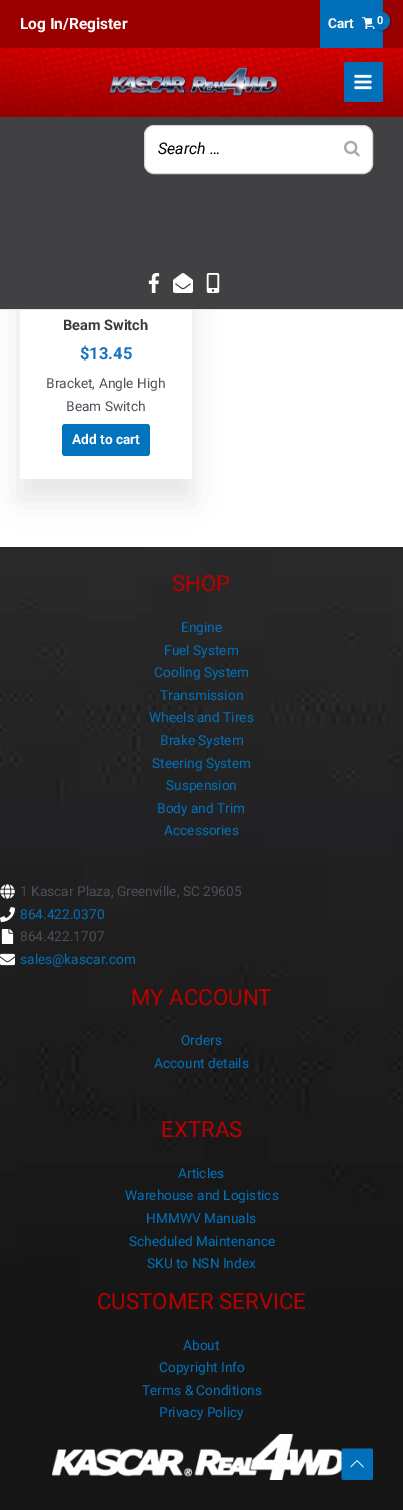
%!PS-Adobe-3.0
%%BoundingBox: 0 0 403 1510
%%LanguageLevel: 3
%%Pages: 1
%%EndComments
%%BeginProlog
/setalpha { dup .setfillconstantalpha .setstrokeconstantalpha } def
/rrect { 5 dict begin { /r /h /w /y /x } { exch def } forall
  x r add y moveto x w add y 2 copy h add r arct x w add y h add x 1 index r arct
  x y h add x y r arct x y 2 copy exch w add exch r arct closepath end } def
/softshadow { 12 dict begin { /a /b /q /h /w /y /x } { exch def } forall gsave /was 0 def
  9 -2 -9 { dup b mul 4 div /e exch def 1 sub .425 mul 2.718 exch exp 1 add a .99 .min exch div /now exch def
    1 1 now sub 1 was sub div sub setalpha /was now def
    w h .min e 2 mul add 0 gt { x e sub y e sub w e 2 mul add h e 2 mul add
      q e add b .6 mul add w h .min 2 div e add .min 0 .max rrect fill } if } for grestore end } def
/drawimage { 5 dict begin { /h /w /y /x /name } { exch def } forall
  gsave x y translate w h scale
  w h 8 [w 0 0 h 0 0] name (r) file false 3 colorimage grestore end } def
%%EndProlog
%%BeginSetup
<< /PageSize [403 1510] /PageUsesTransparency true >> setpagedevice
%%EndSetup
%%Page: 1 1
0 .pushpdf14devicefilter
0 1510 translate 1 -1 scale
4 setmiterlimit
1 setgray
0 0 403 1510 rectfill
0.608 0 0 setrgbcolor
0 0 403 48 rectfill
0.004 0.439 0.725 setrgbcolor
320 0 63 48 rectfill
(images/1.raw) 362 17 13 12 drawimage
0 setgray
373 13 18 18 9 1.5 0.3 softshadow
0.004 0.439 0.725 setrgbcolor
newpath 381 21 9 0 360 arc closepath fill
gsave
newpath 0 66 moveto 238 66 lineto 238 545 lineto 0 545 lineto closepath 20 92 moveto 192 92 lineto 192 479 lineto 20 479 lineto closepath eoclip newpath
0 setgray
20 112 172 387 0 15 0.1 softshadow
grestore
(images/2.raw) 0 48 403 69 drawimage
(images/3.raw) 109 67 172 30 drawimage
344 62 39 40 2 rrect fill
(images/4.raw) 354 74 18 16 drawimage
0.255 0.251 0.259 setrgbcolor
0 117 403 192 rectfill
0.898 setgray
0 309 403 1 rectfill
1 setgray
144.5 125.5 228 48 9.5 rrect gsave fill grestore
0.839 setgray
stroke
(images/5.raw) 344 140 16 17 drawimage
(images/6.raw) 148 273 12 20 drawimage
(images/7.raw) 173 273 20 20 drawimage
(images/8.raw) 206 273 14 20 drawimage
0.008 0.455 0.745 setrgbcolor
62 424 88 32 3 rrect fill
(images/9.raw) 0 547 403 963 drawimage
(images/10.raw) 0 884 15 15 drawimage
(images/11.raw) 0 907 15 15 drawimage
(images/12.raw) 1 929 13 15 drawimage
(images/13.raw) 0 953 15 13 drawimage
(images/14.raw) 52 1434 290 46 drawimage
0.004 0.439 0.725 setrgbcolor
newpath 371 1480 moveto 343.5 1480 lineto 342.5 1480 341.5 1479 341.5 1478 curveto 341.5 1450.5 lineto 341.5 1449.5 342.5 1448.5 343.5 1448.5 curveto 371 1448.5 lineto 372 1448.5 373 1449.5 373 1450.5 curveto 373 1478 lineto 373 1479 372 1480 371 1480 curveto closepath fill
(images/15.raw) 350 1460 14 8 drawimage
/Roboto-Bold [15.5 0 0 -15.5 0 0] selectfont
1 setgray
20 29 moveto (Log In/Register) show
/Roboto-Bold [13.7 0 0 -13.7 0 0] selectfont
328 28 moveto (Cart) show
/Roboto-Bold [11 0 0 -11 0 0] selectfont
377 24 moveto (0) show
/Roboto-Italic [16 0 0 -16 0 0] selectfont
0 setgray
158 154 moveto (Search …) show
/Roboto-Bold [14.5 0 0 -14.5 0 0] selectfont
0.227 setgray
63 330 moveto (Beam Switch) show
/Roboto-Bold [16.5 0 0 -16.5 0 0] selectfont
0.118 0.451 0.745 setrgbcolor
80 359 moveto ($13.45) show
/Roboto-Regular [13.7 0 0 -13.7 0 0] selectfont
0.294 0.31 0.345 setrgbcolor
46 388 moveto (Bracket, Angle High) show
66 411 moveto (Beam Switch) show
/Roboto-Bold [13.7 0 0 -13.7 0 0] selectfont
1 setgray
72 444 moveto (Add to cart) show
/Roboto-Regular [22.25 0 0 -22.25 0 0] selectfont
0.722 0 0 setrgbcolor
172 591 moveto (SHOP) show
/Roboto-Regular [13.7 0 0 -13.7 0 0] selectfont
0.004 0.439 0.725 setrgbcolor
181 632 moveto (Engine) show
164 655 moveto (Fuel System) show
154 677 moveto (Cooling System) show
160 700 moveto (Transmission) show
149 722 moveto (Wheels and Tires) show
160 745 moveto (Brake System) show
152 768 moveto (Steering System) show
166 790 moveto (Suspension) show
157 813 moveto (Body and Trim) show
164 835 moveto (Accessories) show
0.294 0.31 0.345 setrgbcolor
20 896 moveto (1 Kascar Plaza, Greenville, SC 29605) show
0.004 0.439 0.725 setrgbcolor
20 919 moveto (864.422.0370) show
0.294 0.31 0.345 setrgbcolor
20 941 moveto (864.422.1707) show
0.004 0.439 0.725 setrgbcolor
20 964 moveto (sales@kascar.com) show
/Roboto-Regular [22.25 0 0 -22.25 0 0] selectfont
0.722 0 0 setrgbcolor
131 1005 moveto (MY ACCOUNT) show
/Roboto-Regular [13.7 0 0 -13.7 0 0] selectfont
0.004 0.439 0.725 setrgbcolor
181 1045 moveto (Orders) show
154 1068 moveto (Account details) show
/Roboto-Regular [22.25 0 0 -22.25 0 0] selectfont
0.722 0 0 setrgbcolor
161 1137 moveto (EXTRAS) show
/Roboto-Regular [13.7 0 0 -13.7 0 0] selectfont
0.004 0.439 0.725 setrgbcolor
178 1178 moveto (Articles) show
125 1200 moveto (Warehouse and Logistics) show
146 1223 moveto (HMMWV Manuals) show
129 1246 moveto (Scheduled Maintenance) show
147 1268 moveto (SKU to NSN Index) show
/Roboto-Regular [22.25 0 0 -22.25 0 0] selectfont
0.722 0 0 setrgbcolor
97 1309 moveto (CUSTOMER SERVICE) show
/Roboto-Regular [13.7 0 0 -13.7 0 0] selectfont
0.004 0.439 0.725 setrgbcolor
183 1350 moveto (About) show
159 1372 moveto (Copyright Info) show
142 1395 moveto (Terms & Conditions) show
159 1417 moveto (Privacy Policy) show
.poppdf14devicefilter showpage
%%EOF
